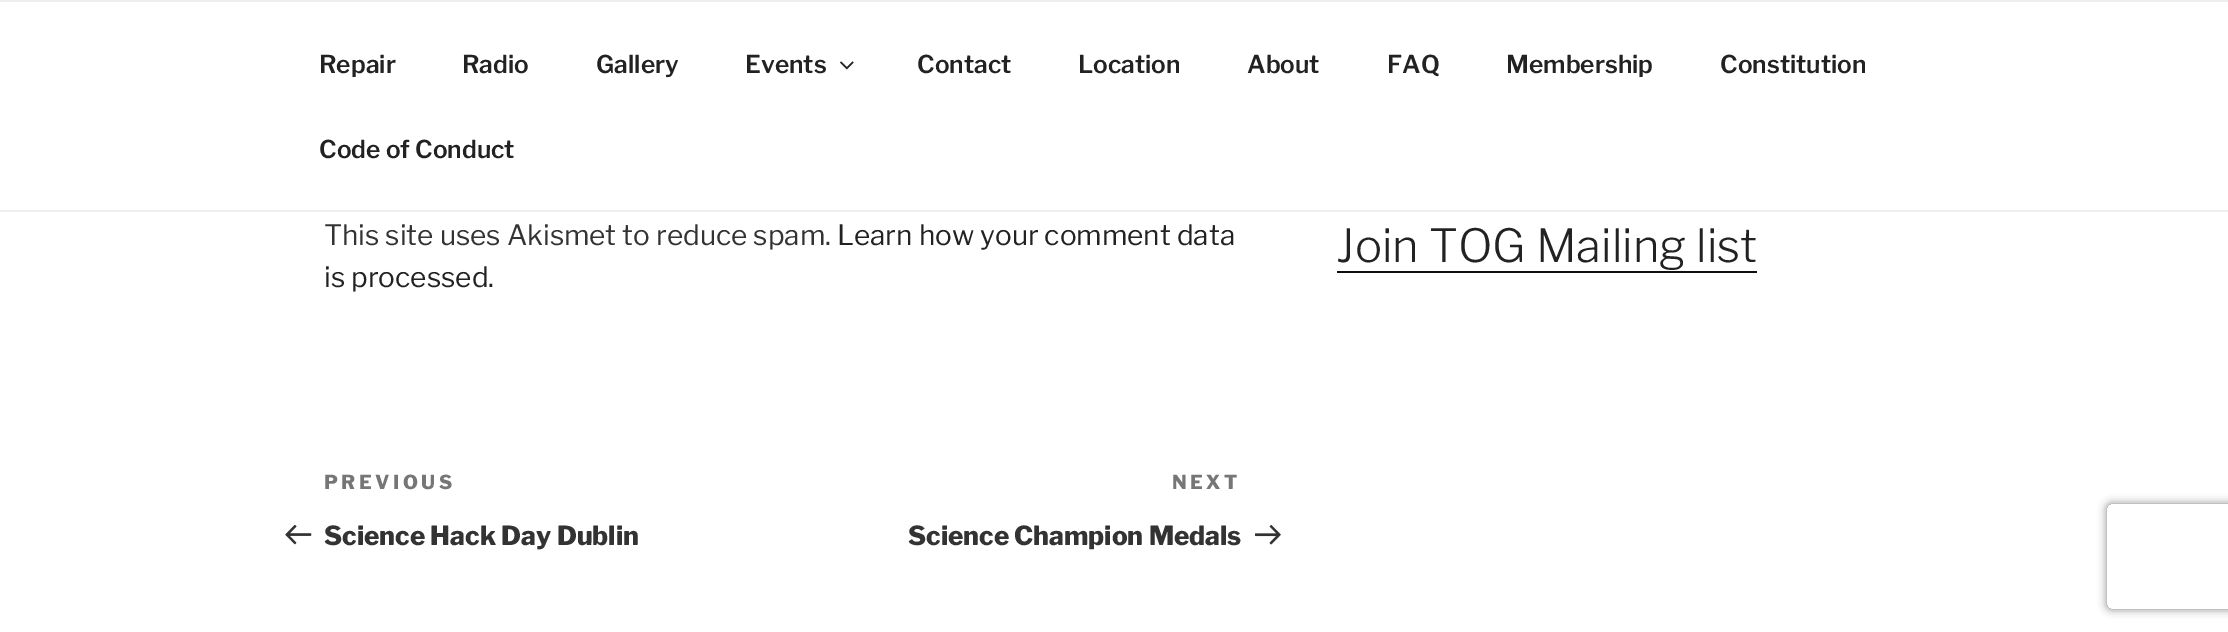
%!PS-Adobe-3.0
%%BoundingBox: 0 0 2228 632
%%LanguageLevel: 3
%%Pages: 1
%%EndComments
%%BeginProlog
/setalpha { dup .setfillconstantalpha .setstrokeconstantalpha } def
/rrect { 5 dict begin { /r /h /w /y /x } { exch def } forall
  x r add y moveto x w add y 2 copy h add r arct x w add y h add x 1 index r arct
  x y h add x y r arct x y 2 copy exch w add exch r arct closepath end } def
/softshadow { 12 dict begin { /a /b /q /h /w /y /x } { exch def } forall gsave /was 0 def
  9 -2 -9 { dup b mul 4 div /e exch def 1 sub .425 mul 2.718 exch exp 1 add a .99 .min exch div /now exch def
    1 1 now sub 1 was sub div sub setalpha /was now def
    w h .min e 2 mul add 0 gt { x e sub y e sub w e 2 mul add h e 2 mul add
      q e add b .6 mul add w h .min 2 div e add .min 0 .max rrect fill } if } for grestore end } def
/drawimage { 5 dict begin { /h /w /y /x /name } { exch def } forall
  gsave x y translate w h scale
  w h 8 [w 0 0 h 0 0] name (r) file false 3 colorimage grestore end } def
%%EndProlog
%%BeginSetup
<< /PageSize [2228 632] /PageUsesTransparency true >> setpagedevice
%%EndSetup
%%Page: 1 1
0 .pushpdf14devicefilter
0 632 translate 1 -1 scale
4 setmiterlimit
1 setgray
0 0 2228 632 rectfill
0.933 setgray
0 0 2228 2 rectfill
0 210 2228 2 rectfill
(images/1.raw) 840 61 14 9 drawimage
(images/2.raw) 285 524 27 21 drawimage
(images/3.raw) 1255 524 26 21 drawimage
0.059 setgray
1337 271 420 2 rectfill
gsave
newpath 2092 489 moveto 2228 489 lineto 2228 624 lineto 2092 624 lineto closepath 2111 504 moveto 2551 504 lineto 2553 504 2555 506 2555 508 curveto 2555 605 lineto 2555 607 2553 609 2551 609 curveto 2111 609 lineto 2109 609 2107 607 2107 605 curveto 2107 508 lineto 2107 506 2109 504 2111 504 curveto closepath eoclip newpath
0.502 setgray
2107 504 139 105 4 4.5 1 softshadow
grestore
/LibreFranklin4-Thin [24.5 0 0 -24.5 0 0] selectfont
0.133 setgray
319 73 moveto (Repair) show
462 73 moveto (Radio) show
596 73 moveto (Gallery) show
745 73 moveto (Events) show
917 73 moveto (Contact) show
1078 73 moveto (Location) show
1247 73 moveto (About) show
1387 73 moveto (FAQ) show
1506 73 moveto (Membership) show
1720 73 moveto (Constitution) show
319 158 moveto (Code of Conduct) show
/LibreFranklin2-Thin [28 0 0 -28 0 0] selectfont
0.2 setgray
324 245 moveto (This site uses Akismet to reduce spam.) show
0.133 setgray
837 245 moveto (Learn how your comment data) show
324 287 moveto (is processed.) show
/LibreFranklin-Thin [19.25 0 0 -19.25 0 0] selectfont
0.463 setgray
324 489 moveto 3.5 0 (PREVIOUS) ashow
/LibreFranklin-Thin [26.25 0 0 -26.25 0 0] selectfont
0.2 setgray
324 545 moveto (Science Hack Day Dublin) show
/LibreFranklin-Thin [19.25 0 0 -19.25 0 0] selectfont
0.463 setgray
1172 489 moveto 3.5 0 (NEXT) ashow
/LibreFranklin-Thin [26.25 0 0 -26.25 0 0] selectfont
0.2 setgray
908 545 moveto (Science Champion Medals) show
/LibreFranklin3-Thin [45.5 0 0 -45.5 0 0] selectfont
0.133 setgray
1336 262 moveto (Join TOG Mailing list) show
.poppdf14devicefilter showpage
%%EOF
